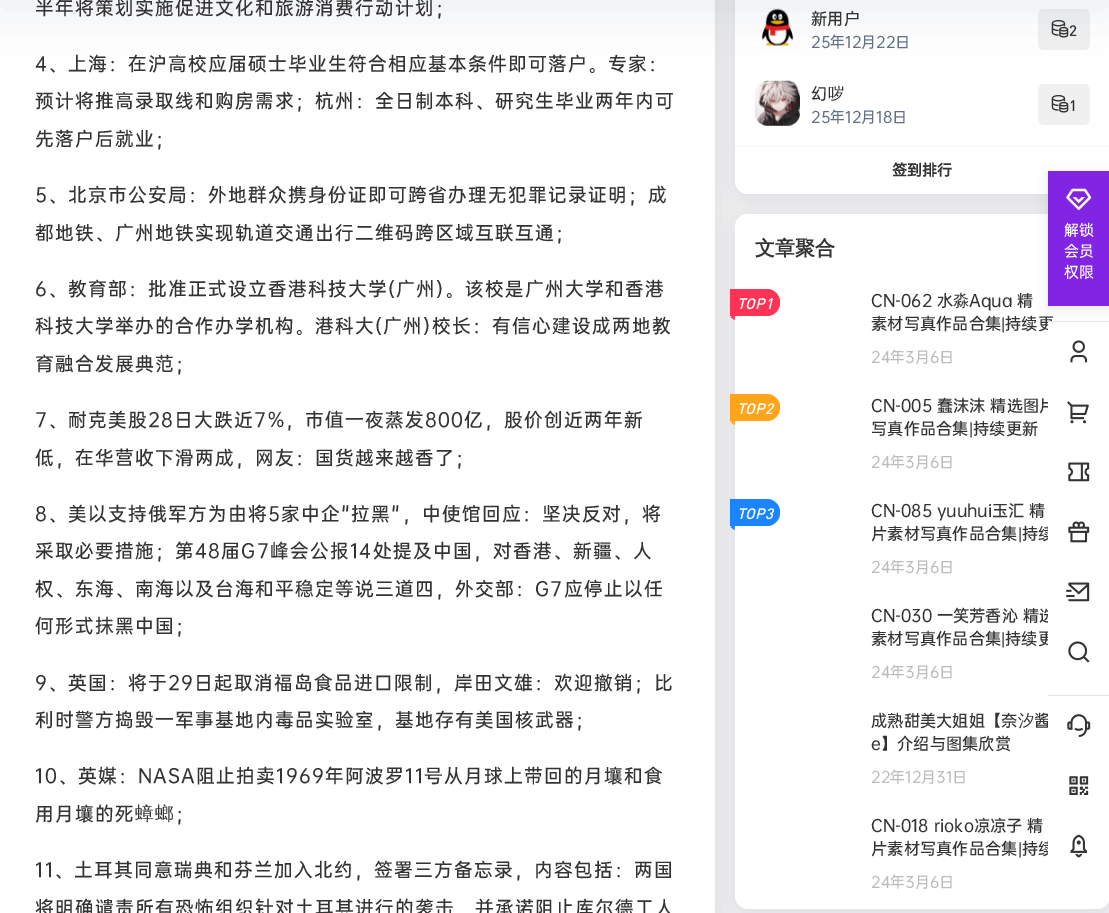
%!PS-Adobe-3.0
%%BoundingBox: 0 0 1109 913
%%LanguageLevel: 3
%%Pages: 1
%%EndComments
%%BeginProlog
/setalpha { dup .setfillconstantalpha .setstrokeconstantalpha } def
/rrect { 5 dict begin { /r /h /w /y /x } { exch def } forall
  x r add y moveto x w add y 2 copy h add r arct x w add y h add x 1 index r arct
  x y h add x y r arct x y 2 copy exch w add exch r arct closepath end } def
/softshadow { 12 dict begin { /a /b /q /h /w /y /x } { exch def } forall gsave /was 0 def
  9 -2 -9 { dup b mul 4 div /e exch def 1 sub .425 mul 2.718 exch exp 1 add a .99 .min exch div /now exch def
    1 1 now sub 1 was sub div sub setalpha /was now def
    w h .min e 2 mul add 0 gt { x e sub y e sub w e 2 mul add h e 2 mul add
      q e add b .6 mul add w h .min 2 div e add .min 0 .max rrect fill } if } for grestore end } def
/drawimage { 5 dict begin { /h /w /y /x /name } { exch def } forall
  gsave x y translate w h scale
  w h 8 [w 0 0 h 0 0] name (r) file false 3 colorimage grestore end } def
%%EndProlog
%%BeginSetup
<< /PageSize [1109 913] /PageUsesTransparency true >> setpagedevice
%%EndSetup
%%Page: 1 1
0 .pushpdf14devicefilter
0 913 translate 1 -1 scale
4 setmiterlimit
0.941 0.941 0.945 setrgbcolor
0 0 1109 913 rectfill
0.086 0.09 0.184 setrgbcolor
0 -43 715 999 13 10 0.08 softshadow
1 setgray
0 0 715 913 rectfill
0.086 0.09 0.184 setrgbcolor
735 -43 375 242 13 10 0.08 softshadow
1 setgray
735 -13 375 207 13 rrect fill
(images/1.raw) 755 6 45 45 drawimage
0.941 0.941 0.945 setrgbcolor
1038 9 52 41 6 rrect fill
(images/2.raw) 1051 20 18 18 drawimage
(images/3.raw) 755 80 45 46 drawimage
0.067 0.227 0.365 setrgbcolor
0 -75 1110 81 0 25 0.1 softshadow
0.941 0.941 0.945 setrgbcolor
1038 84 52 41 6 rrect fill
(images/2.raw) 1051 95 18 18 drawimage
0.961 0.965 0.969 setrgbcolor
735 146 374 1 rectfill
0.086 0.09 0.184 setrgbcolor
735 219 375 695 13 10 0.08 softshadow
1 setgray
735 214 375 695 13 rrect fill
1 0.2 0.333 setrgbcolor
newpath 730 289 moveto 767 289 lineto 774 289 780 295 780 302 curveto 780 303 lineto 780 310 774 316 767 316 curveto 730 316 lineto closepath fill
newpath 734.5 320 moveto 730.5 317 lineto 735 314.5 lineto closepath fill
1 0.643 0.106 setrgbcolor
newpath 730 394 moveto 767 394 lineto 774 394 780 400 780 407 curveto 780 408 lineto 780 415 774 421 767 421 curveto 730 421 lineto closepath fill
newpath 734.5 425 moveto 730.5 422 lineto 735 419.5 lineto closepath fill
0.102 0.522 1 setrgbcolor
newpath 730 499 moveto 767 499 lineto 774 499 780 505 780 512 curveto 780 513 lineto 780 520 774 526 767 526 curveto 730 526 lineto closepath fill
newpath 734.5 530 moveto 730.5 527 lineto 735 524.5 lineto closepath fill
(images/5.raw) 1070 340 18 23 drawimage
(images/6.raw) 1067 401 22 23 drawimage
(images/7.raw) 1068 462 22 20 drawimage
(images/8.raw) 1068 521 22 22 drawimage
(images/9.raw) 1066 582 24 20 drawimage
(images/10.raw) 1068 641 22 22 drawimage
0.886 0.89 0.894 setrgbcolor
1048 695 61 1 rectfill
(images/11.raw) 1067 714 24 23 drawimage
(images/12.raw) 1069 776 20 19 drawimage
(images/13.raw) 1070 834 18 24 drawimage
/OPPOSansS-Regular [18.75 0 0 -18.75 0 0] selectfont
0.2 setgray
35 14 moveto 1.25 0 (半年将策划实施促进文化和旅游消费行动计划；) ashow
35 70 moveto 1.25 0 (4、上海：在沪高校应届硕士毕业生符合相应基本条件即可落户。专家：) ashow
35 107 moveto 1.25 0 (预计将推高录取线和购房需求；杭州：全日制本科、研究生毕业两年内可) ashow
35 145 moveto 1.25 0 (先落户后就业；) ashow
35 201 moveto 1.25 0 (5、北京市公安局：外地群众携身份证即可跨省办理无犯罪记录证明；成) ashow
35 239 moveto 1.25 0 (都地铁、广州地铁实现轨道交通出行二维码跨区域互联互通；) ashow
35 295 moveto 1.25 0 (6、教育部：批准正式设立香港科技大学\(广州\)。该校是广州大学和香港) ashow
35 332 moveto 1.25 0 (科技大学举办的合作办学机构。港科大\(广州\)校长：有信心建设成两地教) ashow
35 370 moveto 1.25 0 (育融合发展典范；) ashow
35 426 moveto 1.25 0 (7、耐克美股28日大跌近7%，市值一夜蒸发800亿，股价创近两年新) ashow
35 464 moveto 1.25 0 (低，在华营收下滑两成，网友：国货越来越香了；) ashow
35 520 moveto 1.25 0 (8、美以支持俄军方为由将5家中企"拉黑"，中使馆回应：坚决反对，将) ashow
35 557 moveto 1.25 0 (采取必要措施；第48届G7峰会公报14处提及中国，对香港、新疆、人) ashow
35 595 moveto 1.25 0 (权、东海、南海以及台海和平稳定等说三道四，外交部：G7应停止以任) ashow
35 632 moveto 1.25 0 (何形式抹黑中国；) ashow
35 689 moveto 1.25 0 (9、英国：将于29日起取消福岛食品进口限制，岸田文雄：欢迎撤销；比) ashow
35 726 moveto 1.25 0 (利时警方捣毁一军事基地内毒品实验室，基地存有美国核武器；) ashow
35 782 moveto 1.25 0 (10、英媒：NASA阻止拍卖1969年阿波罗11号从月球上带回的月壤和食) ashow
35 820 moveto 1.25 0 (用月壤的死) ashow
/WenQuanYiZenHei-Medium [18.75 0 0 -18.75 0 0] selectfont
135 820 moveto 1.25 0 (蟑螂) ashow
/OPPOSansS-Regular [18.75 0 0 -18.75 0 0] selectfont
175 820 moveto 1.25 0 (；) ashow
35 876 moveto 1.25 0 (11、土耳其同意瑞典和芬兰加入北约，签署三方备忘录，内容包括：两国) ashow
35 914 moveto 1.25 0 (将明确谴责所有恐怖组织针对土耳其进行的袭击，并承诺阻止库尔德工人) ashow
/OPPOSansS-Regular [16.25 0 0 -16.25 0 0] selectfont
811 24 moveto (新用户) show
/OPPOSansS-Regular [15 0 0 -15 0 0] selectfont
0.384 0.435 0.525 setrgbcolor
811 47 moveto (25年12月22日) show
/DIN-Medium [15 0 0 -15 0 0] selectfont
0.2 setgray
1069 36 moveto (2) show
/OPPOSansS-Regular [16.25 0 0 -16.25 0 0] selectfont
811 99 moveto (幻) show
/WenQuanYiZenHei-Medium [16.25 0 0 -16.25 0 0] selectfont
828 99 moveto (哕) show
/OPPOSansS-Regular [15 0 0 -15 0 0] selectfont
0.384 0.435 0.525 setrgbcolor
811 122 moveto (25年12月18日) show
/DIN-Medium [15 0 0 -15 0 0] selectfont
0.2 setgray
1069 111 moveto (1) show
/OPPOSansS-Bold [15 0 0 -15 0 0] selectfont
892 175 moveto (签到排行) show
/WenQuanYiZenHei-Bold [20 0 0 -20 0 0] selectfont
755 255 moveto (文章聚合) show
/DIN-MediumItalic [15 0 0 -15 0 0] selectfont
1 setgray
737 309 moveto (TOP1) show
/OPPOSansS-Regular [16.25 0 0 -16.25 0 0] selectfont
0.2 setgray
871 306 moveto (CN-062 水) show
/WenQuanYiZenHei-Medium [16.25 0 0 -16.25 0 0] selectfont
953 306 moveto (淼) show
/OPPOSansS-Regular [16.25 0 0 -16.25 0 0] selectfont
969 306 moveto (Aqua 精) show
871 329 moveto (素材写真作品合集) show
/LiberationSans-Regular [16.25 0 0 -16.25 0 0] selectfont
1001 329 moveto (|) show
/OPPOSansS-Regular [16.25 0 0 -16.25 0 0] selectfont
1005 329 moveto (持续更) show
/OPPOSansS-Regular [15 0 0 -15 0 0] selectfont
0.737 setgray
871 362 moveto (24年3月6日) show
/DIN-MediumItalic [15 0 0 -15 0 0] selectfont
1 setgray
737 414 moveto (TOP2) show
/OPPOSansS-Regular [16.25 0 0 -16.25 0 0] selectfont
0.2 setgray
871 411 moveto (CN-005 蠢沫沫 精选图片) show
871 434 moveto (写真作品合集) show
/LiberationSans-Regular [16.25 0 0 -16.25 0 0] selectfont
969 434 moveto (|) show
/OPPOSansS-Regular [16.25 0 0 -16.25 0 0] selectfont
973 434 moveto (持续更新) show
/OPPOSansS-Regular [15 0 0 -15 0 0] selectfont
0.737 setgray
871 467 moveto (24年3月6日) show
/DIN-MediumItalic [15 0 0 -15 0 0] selectfont
1 setgray
737 519 moveto (TOP3) show
/OPPOSansS-Regular [16.25 0 0 -16.25 0 0] selectfont
0.2 setgray
871 516 moveto (CN-085 yuuhui玉汇 精) show
871 539 moveto (片素材写真作品合集) show
/LiberationSans-Regular [16.25 0 0 -16.25 0 0] selectfont
1018 539 moveto (|) show
/OPPOSansS-Regular [16.25 0 0 -16.25 0 0] selectfont
1022 539 moveto (持续) show
/OPPOSansS-Regular [15 0 0 -15 0 0] selectfont
0.737 setgray
871 572 moveto (24年3月6日) show
/OPPOSansS-Regular [16.25 0 0 -16.25 0 0] selectfont
0.2 setgray
871 621 moveto (CN-030 一笑芳香沁 精选) show
871 644 moveto (素材写真作品合集) show
/LiberationSans-Regular [16.25 0 0 -16.25 0 0] selectfont
1001 644 moveto (|) show
/OPPOSansS-Regular [16.25 0 0 -16.25 0 0] selectfont
1005 644 moveto (持续更) show
/OPPOSansS-Regular [15 0 0 -15 0 0] selectfont
0.737 setgray
871 677 moveto (24年3月6日) show
/OPPOSansS-Regular [16.25 0 0 -16.25 0 0] selectfont
0.2 setgray
871 726 moveto (成熟甜美大姐姐【奈) show
/WenQuanYiZenHei-Medium [16.25 0 0 -16.25 0 0] selectfont
1018 726 moveto (汐) show
/OPPOSansS-Regular [16.25 0 0 -16.25 0 0] selectfont
1034 726 moveto (酱) show
871 749 moveto (e】介绍与图集欣赏) show
/OPPOSansS-Regular [15 0 0 -15 0 0] selectfont
0.737 setgray
871 782 moveto (22年12月31日) show
/OPPOSansS-Regular [16.25 0 0 -16.25 0 0] selectfont
0.2 setgray
871 831 moveto (CN-018 rioko凉凉子 精) show
871 854 moveto (片素材写真作品合集) show
/LiberationSans-Regular [16.25 0 0 -16.25 0 0] selectfont
1018 854 moveto (|) show
/OPPOSansS-Regular [16.25 0 0 -16.25 0 0] selectfont
1022 854 moveto (持续) show
/OPPOSansS-Regular [15 0 0 -15 0 0] selectfont
0.737 setgray
871 887 moveto (24年3月6日) show
1 setgray
1048 322 7 324 rectfill
0.886 0.89 0.894 setrgbcolor
1048 321 61 1 rectfill
0 setgray
1048 174 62 135 0 5 0.1 softshadow
0.51 0.141 0.89 setrgbcolor
1048 171 61 135 rectfill
1 setgray
1064 277 moveto (权限) show
1064 256 moveto (会员) show
1064 235 moveto (解锁) show
(images/4.raw) 1066 188 26 22 drawimage
1048 713 6 143 rectfill
.poppdf14devicefilter showpage
%%EOF
